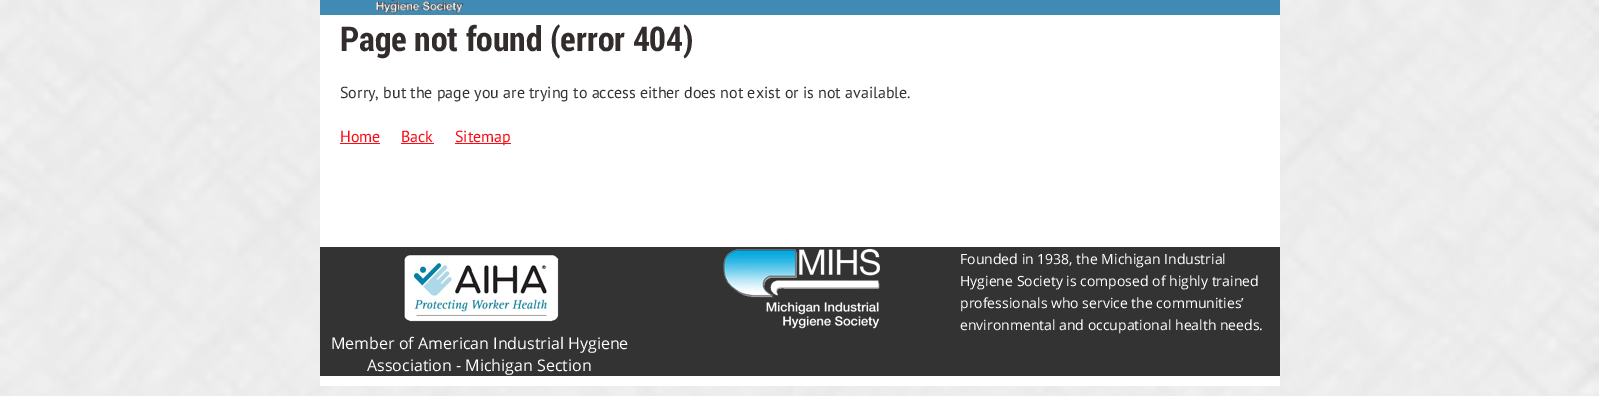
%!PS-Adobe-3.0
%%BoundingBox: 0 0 1599 396
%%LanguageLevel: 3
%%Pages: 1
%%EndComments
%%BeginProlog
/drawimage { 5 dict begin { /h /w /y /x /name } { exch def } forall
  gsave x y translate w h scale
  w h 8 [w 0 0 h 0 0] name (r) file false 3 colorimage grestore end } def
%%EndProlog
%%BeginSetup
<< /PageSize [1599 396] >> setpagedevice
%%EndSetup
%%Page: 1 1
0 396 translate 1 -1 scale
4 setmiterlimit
1 setgray
0 0 1599 396 rectfill
(images/1.raw) 0 0 1599 396 drawimage
320 15 960 371 rectfill
0.255 0.541 0.702 setrgbcolor
320 0 960 15 rectfill
(images/2.raw) 376 0 87 14 drawimage
0.984 0.047 0.082 setrgbcolor
340 143 40 1 rectfill
401 143 33 1 rectfill
455 143 56 1 rectfill
0.2 setgray
320 247 960 129 rectfill
(images/3.raw) 723 248 157 81 drawimage
(images/4.raw) 403 254 156 68 drawimage
/RobotoCondensed-Bold [34 0 0 -34 0 0] selectfont
0.196 0.173 0.173 setrgbcolor
340 51 moveto (Page not found \(error 404\)) show
/PTSans-Regular [16 0 0 -16 0 0] selectfont
0.2 setgray
340 98 moveto (Sorry, but the page you are trying to access either does not exist or is not available.) show
0.984 0.047 0.082 setrgbcolor
340 142 moveto (Home) show
401 142 moveto (Back) show
455 142 moveto (Sitemap) show
/OpenSans-Regular [14 0 0 -14 0 0] selectfont
1 setgray
960 264 moveto (Founded in 1938, the Michigan Industrial) show
960 286 moveto (Hygiene Society is composed of highly trained) show
960 308 moveto (professionals who service the communities’) show
960 330 moveto (environmental and occupational health needs.) show
/OpenSans-Regular [16 0 0 -16 0 0] selectfont
331 349 moveto (Member of American Industrial Hygiene) show
367 371 moveto (Association - Michigan Section) show
showpage
%%EOF
